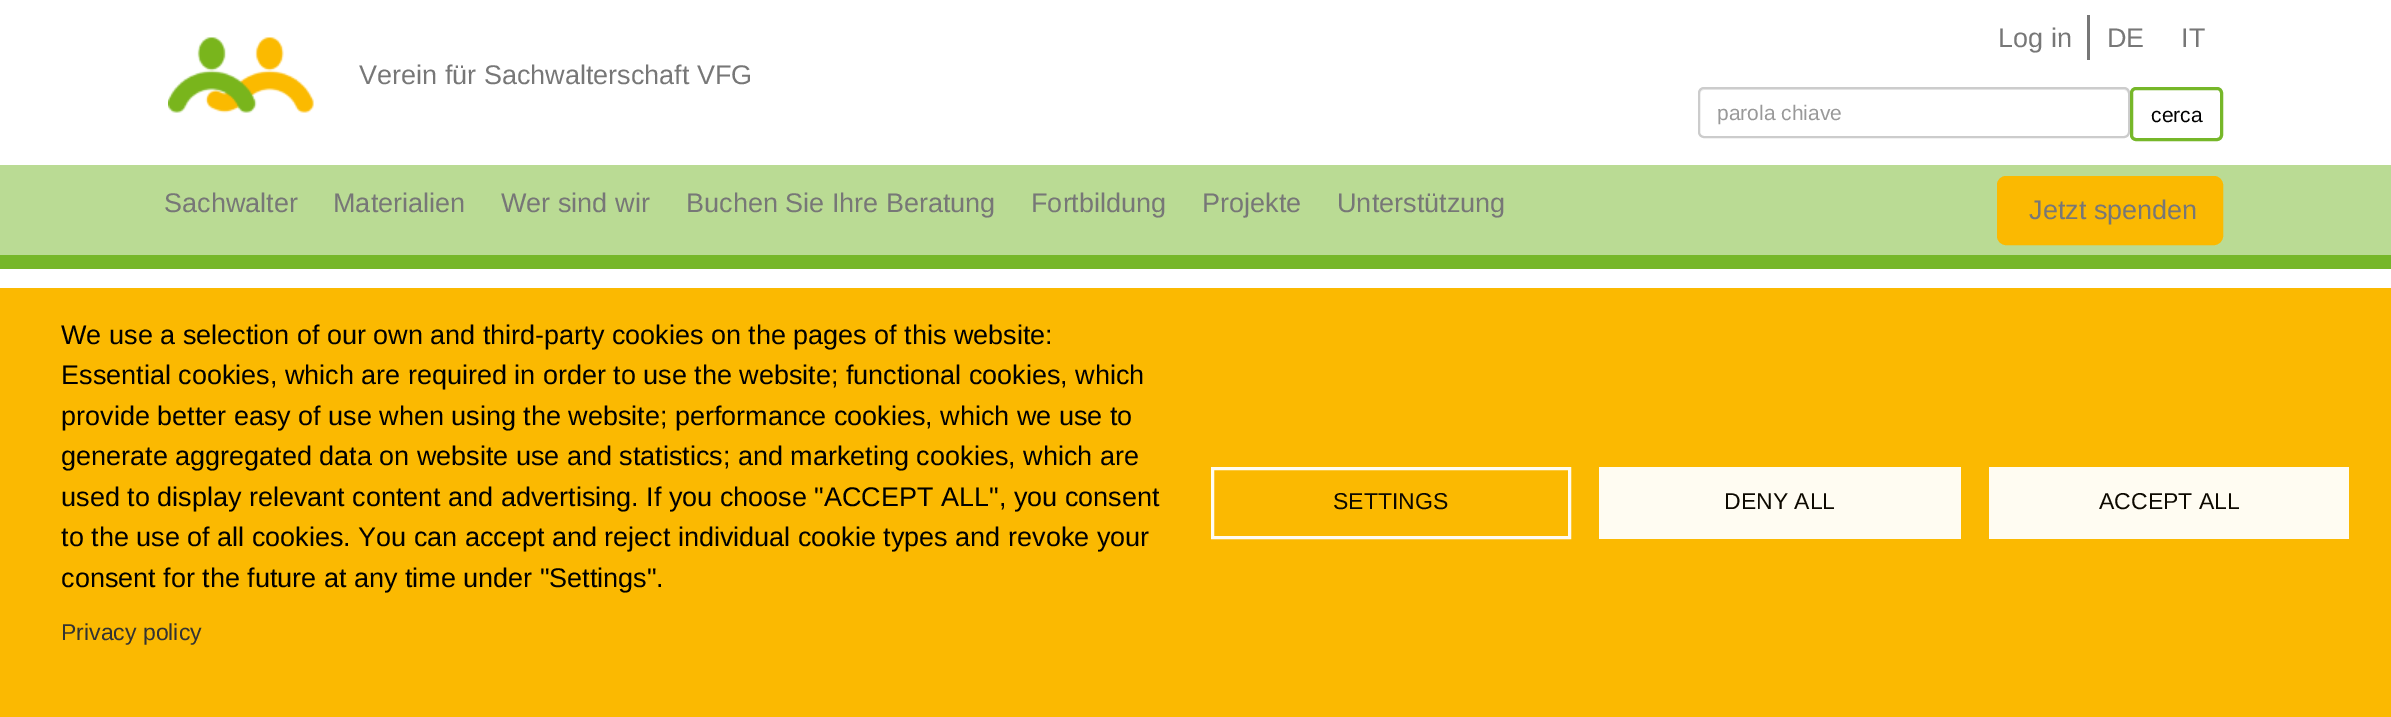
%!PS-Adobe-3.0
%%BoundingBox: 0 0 2391 717
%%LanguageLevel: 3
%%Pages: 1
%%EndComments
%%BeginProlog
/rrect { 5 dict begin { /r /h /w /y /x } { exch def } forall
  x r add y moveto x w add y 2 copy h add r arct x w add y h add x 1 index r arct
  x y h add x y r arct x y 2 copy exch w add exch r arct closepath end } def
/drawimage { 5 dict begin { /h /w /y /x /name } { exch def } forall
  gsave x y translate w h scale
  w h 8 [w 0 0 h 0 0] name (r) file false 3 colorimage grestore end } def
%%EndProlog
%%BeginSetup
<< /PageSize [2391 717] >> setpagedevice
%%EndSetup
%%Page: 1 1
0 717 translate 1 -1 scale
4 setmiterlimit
1 setgray
0 0 2391 717 rectfill
(images/1.raw) 168 37 146 76 drawimage
0.467 setgray
2087 15 3 45 rectfill
0.925 setgray
newpath 1704 90 moveto 2124 90 lineto 2126 90 2128 92 2128 94 curveto 2128 135 lineto 2129 134 2129 133 2129 132 curveto 2129 94 lineto 2129 91 2127 89 2124 89 curveto 1705 89 lineto 1702 89 1700 91 1700 94 curveto 1700 92 1702 90 1704 90 curveto closepath fill
0.8 setgray
2 setlinewidth
1699 88 430 49 5 rrect stroke
0.463 0.718 0.161 setrgbcolor
3 setlinewidth
2131.5 88.5 90 51 4.5 rrect stroke
0.729 0.859 0.58 setrgbcolor
0 165 2391 90 rectfill
0.463 0.718 0.161 setrgbcolor
0 255 2391 14 rectfill
0.984 0.725 0.004 setrgbcolor
1998 177 224 67 8 rrect gsave fill grestore
2 setlinewidth
stroke
0 288 2391 429 rectfill
1 0.988 0.949 setrgbcolor
3 setlinewidth
1212.5 468.5 357 69 rectstroke
1599 467 362 72 rectfill
1989 467 360 72 rectfill
/LiberationSans-Regular [27 0 0 -27 0 0] selectfont
0.467 setgray
359 84 moveto (Verein für Sachwalterschaft VFG) show
1998 47 moveto (Log in) show
2107 47 moveto (DE) show
2181 47 moveto (IT) show
/LiberationSans-Regular [21 0 0 -21 0 0] selectfont
0.6 setgray
1717 120 moveto (parola chiave) show
0 setgray
2151 122 moveto (cerca) show
/LiberationSans-Regular [27 0 0 -27 0 0] selectfont
0.467 setgray
164 212 moveto (Sachwalter) show
333 212 moveto (Materialien) show
501 212 moveto (Wer sind wir) show
686 212 moveto (Buchen Sie Ihre Beratung) show
1031 212 moveto (Fortbildung) show
1202 212 moveto (Projekte) show
1337 212 moveto (Unterstützung) show
2029 219 moveto (Jetzt spenden) show
0 setgray
61 344 moveto (We use a selection of our own and third-party cookies on the pages of this website:) show
61 384 moveto (Essential cookies, which are required in order to use the website; functional cookies, which) show
61 425 moveto (provide better easy of use when using the website; performance cookies, which we use to) show
61 465 moveto (generate aggregated data on website use and statistics; and marketing cookies, which are) show
61 506 moveto (used to display relevant content and advertising. If you choose "ACCEPT ALL", you consent) show
61 546 moveto (to the use of all cookies. You can accept and reject individual cookie types and revoke your) show
61 587 moveto (consent for the future at any time under "Settings".) show
/LiberationSans-Regular [23 0 0 -23 0 0] selectfont
0.2 setgray
61 640 moveto (Privacy policy) show
0.051 0.035 0 setrgbcolor
1333 509 moveto (SETTINGS) show
1724 509 moveto (DENY ALL) show
2099 509 moveto (ACCEPT ALL) show
showpage
%%EOF
